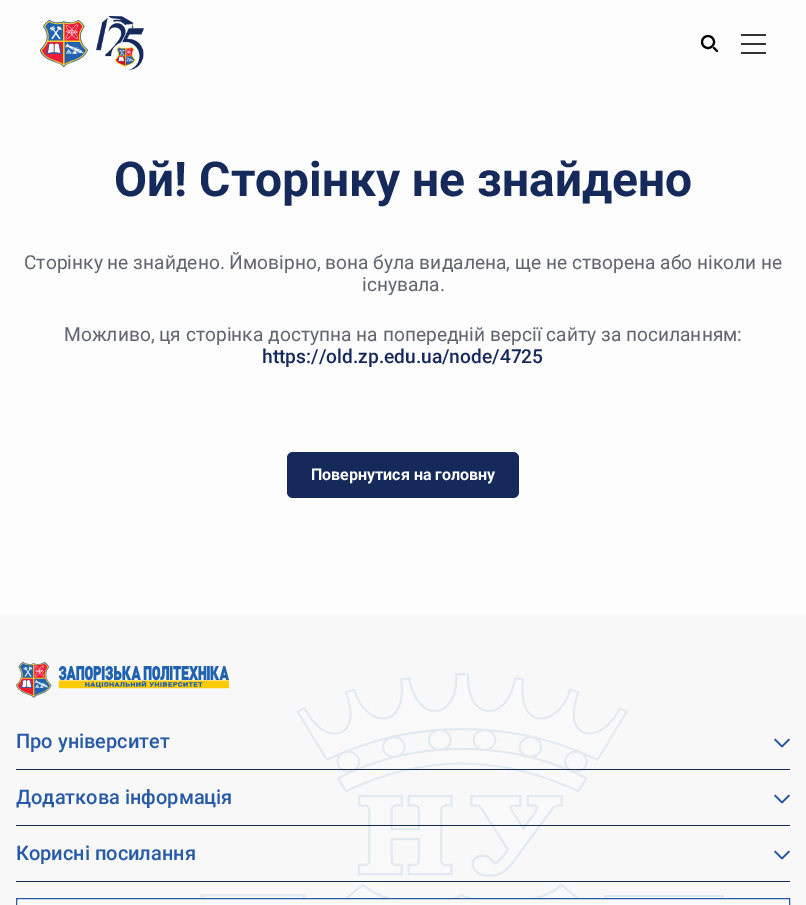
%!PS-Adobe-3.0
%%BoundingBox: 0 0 806 905
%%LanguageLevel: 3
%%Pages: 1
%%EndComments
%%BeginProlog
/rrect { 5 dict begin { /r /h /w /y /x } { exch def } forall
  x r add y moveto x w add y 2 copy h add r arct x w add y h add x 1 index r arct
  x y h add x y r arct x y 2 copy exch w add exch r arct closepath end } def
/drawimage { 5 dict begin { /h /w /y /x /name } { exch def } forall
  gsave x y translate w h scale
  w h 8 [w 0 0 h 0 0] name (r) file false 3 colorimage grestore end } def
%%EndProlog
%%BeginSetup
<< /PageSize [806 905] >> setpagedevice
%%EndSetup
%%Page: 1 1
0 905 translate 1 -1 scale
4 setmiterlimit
0.992 setgray
0 0 806 905 rectfill
(images/1.raw) 40 20 48 47 drawimage
(images/2.raw) 96 16 48 54 drawimage
0 setgray
2 setlinewidth
newpath 708 42 6 0 360 arc closepath stroke
1 setlinecap
newpath 717 51 moveto 714 48 lineto stroke
0.2 setgray
741 34 25 2 rectfill
741 43 25 2 rectfill
741 52 25 2 rectfill
0.086 0.161 0.357 setrgbcolor
287 452 232 46 6 rrect fill
0.973 setgray
0 614 806 291 rectfill
(images/4.raw) 199 673 525 225 drawimage
(images/3.raw) 16 662 213 36 drawimage
0.149 0.353 0.651 setrgbcolor
1.5 setlinewidth
1 setlinejoin
newpath 789 739.5 moveto 782 746.5 lineto 775 739.5 lineto stroke
0.086 0.161 0.357 setrgbcolor
16 769 774 1 rectfill
0.149 0.353 0.651 setrgbcolor
newpath 789 795.5 moveto 782 802.5 lineto 775 795.5 lineto stroke
0.086 0.161 0.357 setrgbcolor
16 825 774 1 rectfill
0.149 0.353 0.651 setrgbcolor
newpath 789 851.5 moveto 782 858.5 lineto 775 851.5 lineto stroke
0.086 0.161 0.357 setrgbcolor
16 881 774 1 rectfill
0.992 setgray
newpath 16.5 898.5 moveto 789.5 898.5 lineto 789.5 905.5 lineto 16.5 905.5 lineto closepath gsave fill grestore
0.149 0.353 0.651 setrgbcolor
1 setlinewidth
0 setlinecap
0 setlinejoin
stroke
/Roboto-Bold [48 0 0 -48 0 0] selectfont
0.086 0.161 0.357 setrgbcolor
114 196 moveto (Ой! Сторінку не знайдено) show
/Roboto-Regular [19.2 0 0 -19.2 0 0] selectfont
0.384 0.396 0.439 setrgbcolor
24 269 moveto (Сторінку не знайдено. Ймовірно, вона була видалена, ще не створена або ніколи не) show
362 291 moveto (існувала.) show
64 341 moveto (Можливо, ця сторінка доступна на попередній версії сайту за посиланням:) show
/Roboto-Medium [19.2 0 0 -19.2 0 0] selectfont
0.086 0.161 0.357 setrgbcolor
262 363 moveto (https://old.zp.edu.ua/node/4725) show
/Roboto-Bold [16 0 0 -16 0 0] selectfont
0.992 setgray
311 480 moveto (Повернутися на головну) show
/Roboto-Medium [20 0 0 -20 0 0] selectfont
0.149 0.353 0.651 setrgbcolor
16 748 moveto (Про університет) show
16 804 moveto (Додаткова інформація) show
16 860 moveto (Корисні посилання) show
showpage
%%EOF
